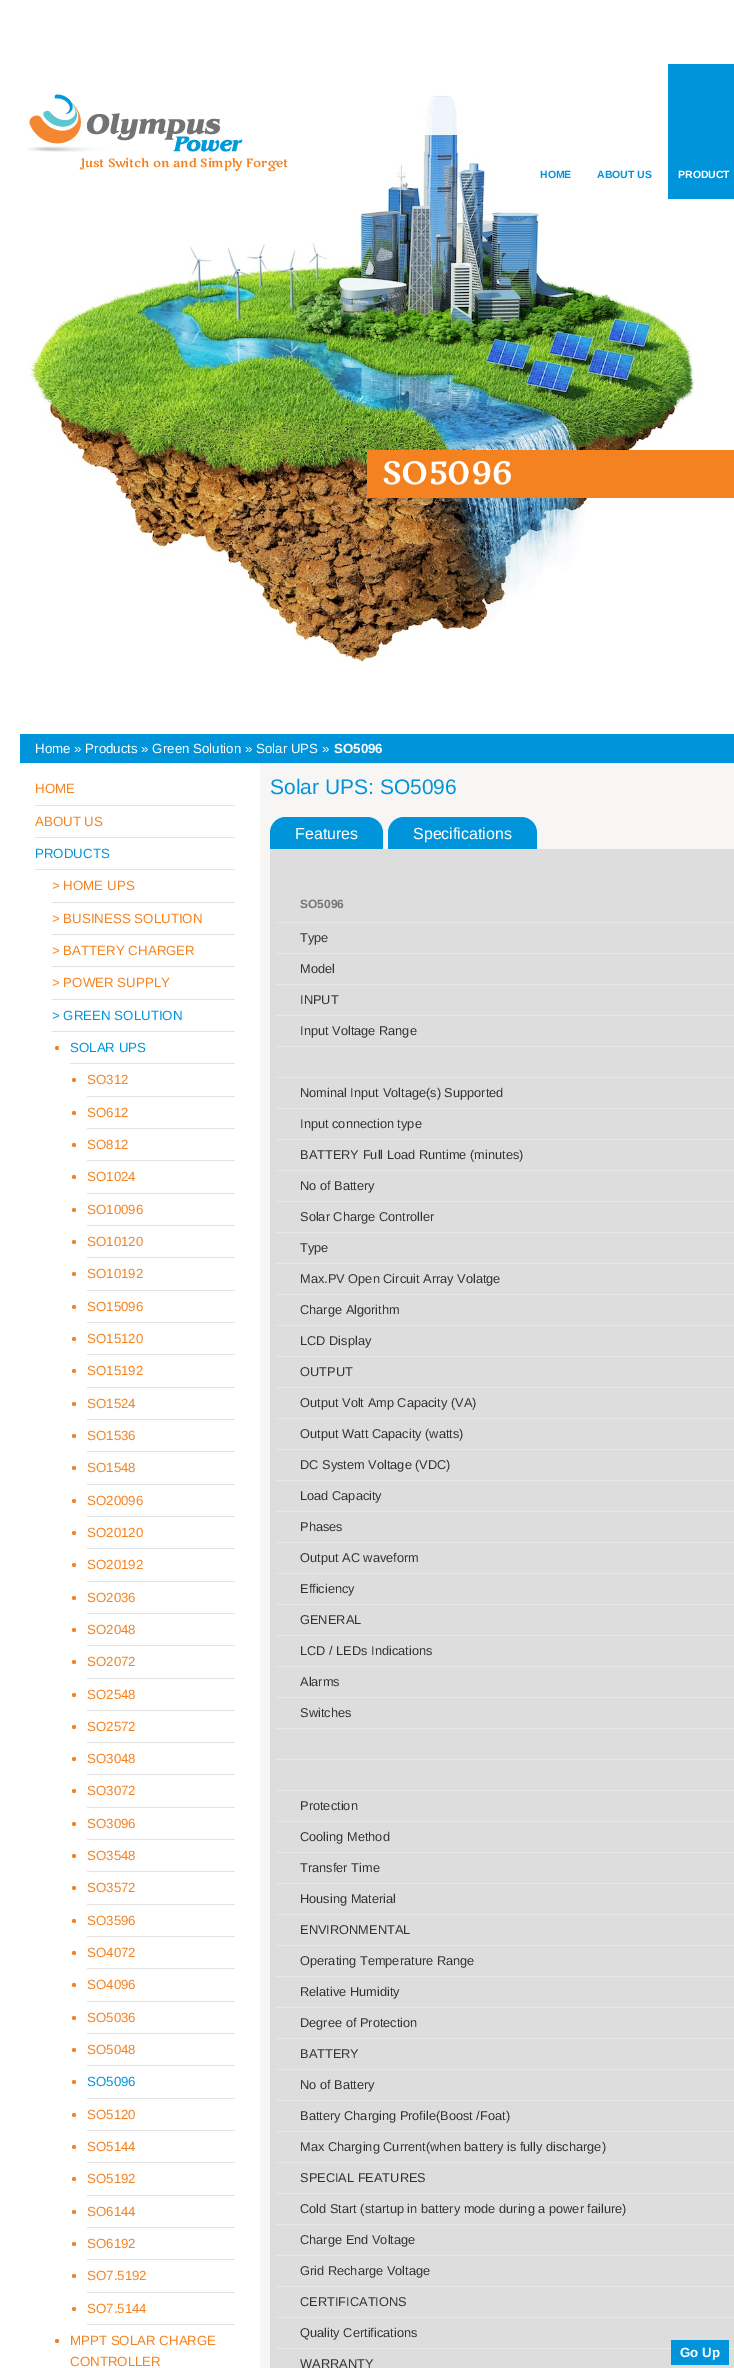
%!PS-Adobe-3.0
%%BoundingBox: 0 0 734 2368
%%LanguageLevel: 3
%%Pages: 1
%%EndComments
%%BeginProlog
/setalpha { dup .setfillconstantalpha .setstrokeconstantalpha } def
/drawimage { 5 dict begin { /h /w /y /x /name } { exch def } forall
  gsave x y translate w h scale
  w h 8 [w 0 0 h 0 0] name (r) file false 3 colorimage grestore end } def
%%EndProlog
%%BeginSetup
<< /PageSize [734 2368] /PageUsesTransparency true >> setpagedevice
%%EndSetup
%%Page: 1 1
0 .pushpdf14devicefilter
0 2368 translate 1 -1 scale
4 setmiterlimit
1 setgray
0 0 734 2368 rectfill
(images/2.raw) 0 26 701 638 drawimage
(images/1.raw) 27 94 216 58 drawimage
0 0.584 0.855 setrgbcolor
668 64 66 135 rectfill
0.9 setalpha
1 setgray
424 94 37 41 rectfill
1 setalpha
0.961 0.51 0.125 setrgbcolor
367 450 367 48 rectfill
0 0.584 0.855 setrgbcolor
20 734 714 29 rectfill
0.89 0.89 0.898 setrgbcolor
35 805 200 1 rectfill
35 837 200 1 rectfill
35 869 200 1 rectfill
52 902 183 1 rectfill
52 934 183 1 rectfill
52 966 183 1 rectfill
52 999 183 1 rectfill
52 1031 183 1 rectfill
0.961 0.51 0.125 setrgbcolor
newpath 57 1048 2 0 360 arc closepath fill
0.89 0.89 0.898 setrgbcolor
70 1063 165 1 rectfill
0.961 0.51 0.125 setrgbcolor
newpath 74 1080 2 0 360 arc closepath fill
0.89 0.89 0.898 setrgbcolor
87 1096 148 1 rectfill
0.961 0.51 0.125 setrgbcolor
newpath 74 1113 2 0 360 arc closepath fill
0.89 0.89 0.898 setrgbcolor
87 1128 148 1 rectfill
0.961 0.51 0.125 setrgbcolor
newpath 74 1145 2 0 360 arc closepath fill
0.89 0.89 0.898 setrgbcolor
87 1160 148 1 rectfill
0.961 0.51 0.125 setrgbcolor
newpath 74 1177 2 0 360 arc closepath fill
0.89 0.89 0.898 setrgbcolor
87 1193 148 1 rectfill
0.961 0.51 0.125 setrgbcolor
newpath 74 1210 2 0 360 arc closepath fill
0.89 0.89 0.898 setrgbcolor
87 1225 148 1 rectfill
0.961 0.51 0.125 setrgbcolor
newpath 74 1242 2 0 360 arc closepath fill
0.89 0.89 0.898 setrgbcolor
87 1257 148 1 rectfill
0.961 0.51 0.125 setrgbcolor
newpath 74 1274 2 0 360 arc closepath fill
0.89 0.89 0.898 setrgbcolor
87 1290 148 1 rectfill
0.961 0.51 0.125 setrgbcolor
newpath 74 1307 2 0 360 arc closepath fill
0.89 0.89 0.898 setrgbcolor
87 1322 148 1 rectfill
0.961 0.51 0.125 setrgbcolor
newpath 74 1339 2 0 360 arc closepath fill
0.89 0.89 0.898 setrgbcolor
87 1354 148 1 rectfill
0.961 0.51 0.125 setrgbcolor
newpath 74 1371 2 0 360 arc closepath fill
0.89 0.89 0.898 setrgbcolor
87 1387 148 1 rectfill
0.961 0.51 0.125 setrgbcolor
newpath 74 1404 2 0 360 arc closepath fill
0.89 0.89 0.898 setrgbcolor
87 1419 148 1 rectfill
0.961 0.51 0.125 setrgbcolor
newpath 74 1436 2 0 360 arc closepath fill
0.89 0.89 0.898 setrgbcolor
87 1451 148 1 rectfill
0.961 0.51 0.125 setrgbcolor
newpath 74 1468 2 0 360 arc closepath fill
0.89 0.89 0.898 setrgbcolor
87 1484 148 1 rectfill
0.961 0.51 0.125 setrgbcolor
newpath 74 1501 2 0 360 arc closepath fill
0.89 0.89 0.898 setrgbcolor
87 1516 148 1 rectfill
0.961 0.51 0.125 setrgbcolor
newpath 74 1533 2 0 360 arc closepath fill
0.89 0.89 0.898 setrgbcolor
87 1548 148 1 rectfill
0.961 0.51 0.125 setrgbcolor
newpath 74 1565 2 0 360 arc closepath fill
0.89 0.89 0.898 setrgbcolor
87 1581 148 1 rectfill
0.961 0.51 0.125 setrgbcolor
newpath 74 1598 2 0 360 arc closepath fill
0.89 0.89 0.898 setrgbcolor
87 1613 148 1 rectfill
0.961 0.51 0.125 setrgbcolor
newpath 74 1630 2 0 360 arc closepath fill
0.89 0.89 0.898 setrgbcolor
87 1645 148 1 rectfill
0.961 0.51 0.125 setrgbcolor
newpath 74 1662 2 0 360 arc closepath fill
0.89 0.89 0.898 setrgbcolor
87 1678 148 1 rectfill
0.961 0.51 0.125 setrgbcolor
newpath 74 1695 2 0 360 arc closepath fill
0.89 0.89 0.898 setrgbcolor
87 1710 148 1 rectfill
0.961 0.51 0.125 setrgbcolor
newpath 74 1727 2 0 360 arc closepath fill
0.89 0.89 0.898 setrgbcolor
87 1742 148 1 rectfill
0.961 0.51 0.125 setrgbcolor
newpath 74 1759 2 0 360 arc closepath fill
0.89 0.89 0.898 setrgbcolor
87 1774 148 1 rectfill
0.961 0.51 0.125 setrgbcolor
newpath 74 1791 2 0 360 arc closepath fill
0.89 0.89 0.898 setrgbcolor
87 1807 148 1 rectfill
0.961 0.51 0.125 setrgbcolor
newpath 74 1824 2 0 360 arc closepath fill
0.89 0.89 0.898 setrgbcolor
87 1839 148 1 rectfill
0.961 0.51 0.125 setrgbcolor
newpath 74 1856 2 0 360 arc closepath fill
0.89 0.89 0.898 setrgbcolor
87 1871 148 1 rectfill
0.961 0.51 0.125 setrgbcolor
newpath 74 1888 2 0 360 arc closepath fill
0.89 0.89 0.898 setrgbcolor
87 1904 148 1 rectfill
0.961 0.51 0.125 setrgbcolor
newpath 74 1921 2 0 360 arc closepath fill
0.89 0.89 0.898 setrgbcolor
87 1936 148 1 rectfill
0.961 0.51 0.125 setrgbcolor
newpath 74 1953 2 0 360 arc closepath fill
0.89 0.89 0.898 setrgbcolor
87 1968 148 1 rectfill
0.961 0.51 0.125 setrgbcolor
newpath 74 1985 2 0 360 arc closepath fill
0.89 0.89 0.898 setrgbcolor
87 2001 148 1 rectfill
0.961 0.51 0.125 setrgbcolor
newpath 74 2018 2 0 360 arc closepath fill
0.89 0.89 0.898 setrgbcolor
87 2033 148 1 rectfill
0.961 0.51 0.125 setrgbcolor
newpath 74 2050 2 0 360 arc closepath fill
0.89 0.89 0.898 setrgbcolor
87 2065 148 1 rectfill
0.961 0.51 0.125 setrgbcolor
newpath 74 2082 2 0 360 arc closepath fill
0.89 0.89 0.898 setrgbcolor
87 2098 148 1 rectfill
0.961 0.51 0.125 setrgbcolor
newpath 74 2115 2 0 360 arc closepath fill
0.89 0.89 0.898 setrgbcolor
87 2130 148 1 rectfill
0.961 0.51 0.125 setrgbcolor
newpath 74 2147 2 0 360 arc closepath fill
0.89 0.89 0.898 setrgbcolor
87 2162 148 1 rectfill
0.961 0.51 0.125 setrgbcolor
newpath 74 2179 2 0 360 arc closepath fill
0.89 0.89 0.898 setrgbcolor
87 2195 148 1 rectfill
0.961 0.51 0.125 setrgbcolor
newpath 74 2212 2 0 360 arc closepath fill
0.89 0.89 0.898 setrgbcolor
87 2227 148 1 rectfill
0.961 0.51 0.125 setrgbcolor
newpath 74 2244 2 0 360 arc closepath fill
0.89 0.89 0.898 setrgbcolor
87 2259 148 1 rectfill
0.961 0.51 0.125 setrgbcolor
newpath 74 2276 2 0 360 arc closepath fill
0.89 0.89 0.898 setrgbcolor
87 2292 148 1 rectfill
0.961 0.51 0.125 setrgbcolor
newpath 74 2309 2 0 360 arc closepath fill
0.89 0.89 0.898 setrgbcolor
87 2324 148 1 rectfill
0.961 0.51 0.125 setrgbcolor
newpath 57 2341 2 0 360 arc closepath fill
0.969 0.965 0.957 setrgbcolor
260 763 474 1605 rectfill
0 0.584 0.855 setrgbcolor
newpath 286 817 moveto 367 817 lineto 376 817 383 824 383 833 curveto 383 849 lineto 270 849 lineto 270 833 lineto 270 824 277 817 286 817 curveto closepath fill
newpath 404 817 moveto 521 817 lineto 530 817 537 824 537 833 curveto 537 849 lineto 388 849 lineto 388 833 lineto 388 824 395 817 404 817 curveto closepath fill
0.867 setgray
270 849 464 1519 rectfill
0.906 setgray
276 922 458 1 rectfill
276 953 458 1 rectfill
276 984 458 1 rectfill
276 1015 458 1 rectfill
276 1046 458 1 rectfill
276 1077 458 1 rectfill
276 1108 458 1 rectfill
276 1139 458 1 rectfill
276 1170 458 1 rectfill
276 1201 458 1 rectfill
276 1232 458 1 rectfill
276 1263 458 1 rectfill
276 1294 458 1 rectfill
276 1325 458 1 rectfill
276 1356 458 1 rectfill
276 1387 458 1 rectfill
276 1418 458 1 rectfill
276 1449 458 1 rectfill
276 1480 458 1 rectfill
276 1511 458 1 rectfill
276 1542 458 1 rectfill
276 1573 458 1 rectfill
276 1604 458 1 rectfill
276 1635 458 1 rectfill
276 1666 458 1 rectfill
276 1697 458 1 rectfill
276 1728 458 1 rectfill
276 1759 458 1 rectfill
276 1790 458 1 rectfill
276 1821 458 1 rectfill
276 1852 458 1 rectfill
276 1883 458 1 rectfill
276 1914 458 1 rectfill
276 1945 458 1 rectfill
276 1976 458 1 rectfill
276 2007 458 1 rectfill
276 2038 458 1 rectfill
276 2069 458 1 rectfill
276 2100 458 1 rectfill
276 2131 458 1 rectfill
276 2162 458 1 rectfill
276 2193 458 1 rectfill
276 2224 458 1 rectfill
276 2255 458 1 rectfill
276 2286 458 1 rectfill
276 2317 458 1 rectfill
276 2348 458 1 rectfill
0 0.584 0.855 setrgbcolor
671 2340 58 25 rectfill
/MarkoOne-Regular [12 0 0 -12 0 0] selectfont
0.961 0.51 0.125 setrgbcolor
80 167 moveto (Just Switch on and Simply Forget) show
/LiberationSans-Bold [10.5 0 0 -10.5 0 0] selectfont
0 0.584 0.855 setrgbcolor
540 178 moveto (HOME) show
597 178 moveto (ABOUT US) show
1 setgray
678 178 moveto (PRODUCT) show
/MarkoOne-Regular [32 0 0 -32 0 0] selectfont
382 484 moveto (SO5096) show
/LiberationSans-Regular [13.3 0 0 -13.3 0 0] selectfont
35 753 moveto (Home » Products » Green Solution » Solar UPS ») show
/LiberationSans-Bold [13.3 0 0 -13.3 0 0] selectfont
334 753 moveto (SO5096) show
/LiberationSans-Regular [13.3 0 0 -13.3 0 0] selectfont
0.961 0.51 0.125 setrgbcolor
35 793 moveto (HOME) show
35 826 moveto (ABOUT US) show
0 0.584 0.855 setrgbcolor
35 858 moveto (PRODUCTS) show
0.961 0.51 0.125 setrgbcolor
52 890 moveto (> HOME UPS) show
52 923 moveto (> BUSINESS SOLUTION) show
52 955 moveto (> BATTERY CHARGER) show
52 987 moveto (> POWER SUPPLY) show
0 0.584 0.855 setrgbcolor
52 1020 moveto (> GREEN SOLUTION) show
70 1052 moveto (SOLAR UPS) show
0.961 0.51 0.125 setrgbcolor
87 1084 moveto (SO312) show
87 1117 moveto (SO612) show
87 1149 moveto (SO812) show
87 1181 moveto (SO1024) show
87 1214 moveto (SO10096) show
87 1246 moveto (SO10120) show
87 1278 moveto (SO10192) show
87 1311 moveto (SO15096) show
87 1343 moveto (SO15120) show
87 1375 moveto (SO15192) show
87 1408 moveto (SO1524) show
87 1440 moveto (SO1536) show
87 1472 moveto (SO1548) show
87 1505 moveto (SO20096) show
87 1537 moveto (SO20120) show
87 1569 moveto (SO20192) show
87 1602 moveto (SO2036) show
87 1634 moveto (SO2048) show
87 1666 moveto (SO2072) show
87 1699 moveto (SO2548) show
87 1731 moveto (SO2572) show
87 1763 moveto (SO3048) show
87 1795 moveto (SO3072) show
87 1828 moveto (SO3096) show
87 1860 moveto (SO3548) show
87 1892 moveto (SO3572) show
87 1925 moveto (SO3596) show
87 1957 moveto (SO4072) show
87 1989 moveto (SO4096) show
87 2022 moveto (SO5036) show
87 2054 moveto (SO5048) show
0 0.584 0.855 setrgbcolor
87 2086 moveto (SO5096) show
0.961 0.51 0.125 setrgbcolor
87 2119 moveto (SO5120) show
87 2151 moveto (SO5144) show
87 2183 moveto (SO5192) show
87 2216 moveto (SO6144) show
87 2248 moveto (SO6192) show
87 2280 moveto (SO7.5192) show
87 2313 moveto (SO7.5144) show
70 2345 moveto (MPPT SOLAR CHARGE) show
70 2366 moveto (CONTROLLER) show
/LiberationSans-Regular [21 0 0 -21 0 0] selectfont
0 0.584 0.855 setrgbcolor
270 794 moveto (Solar UPS: SO5096) show
/LiberationSans-Regular [16 0 0 -16 0 0] selectfont
1 setgray
295 839 moveto (Features) show
413 839 moveto (Specifications) show
/LiberationSans-Bold [12 0 0 -12 0 0] selectfont
0.467 setgray
300 908 moveto (SO5096) show
/LiberationSans-Regular [12.8 0 0 -12.8 0 0] selectfont
0.2 setgray
300 942 moveto (Type) show
300 973 moveto (Model) show
300 1004 moveto (INPUT) show
300 1035 moveto (Input Voltage Range) show
300 1097 moveto (Nominal Input Voltage\(s\) Supported) show
300 1128 moveto (Input connection type) show
300 1159 moveto (BATTERY Full Load Runtime \(minutes\)) show
300 1190 moveto (No of Battery) show
300 1221 moveto (Solar Charge Controller) show
300 1252 moveto (Type) show
300 1283 moveto (Max.PV Open Circuit Array Volatge) show
300 1314 moveto (Charge Algorithm) show
300 1345 moveto (LCD Display) show
300 1376 moveto (OUTPUT) show
300 1407 moveto (Output Volt Amp Capacity \(VA\)) show
300 1438 moveto (Output Watt Capacity \(watts\)) show
300 1469 moveto (DC System Voltage \(VDC\)) show
300 1500 moveto (Load Capacity) show
300 1531 moveto (Phases) show
300 1562 moveto (Output AC waveform) show
300 1593 moveto (Efficiency) show
300 1624 moveto (GENERAL) show
300 1655 moveto (LCD / LEDs Indications) show
300 1686 moveto (Alarms) show
300 1717 moveto (Switches) show
300 1810 moveto (Protection) show
300 1841 moveto (Cooling Method) show
300 1872 moveto (Transfer Time) show
300 1903 moveto (Housing Material) show
300 1934 moveto (ENVIRONMENTAL) show
300 1965 moveto (Operating Temperature Range) show
300 1996 moveto (Relative Humidity) show
300 2027 moveto (Degree of Protection) show
300 2058 moveto (BATTERY) show
300 2089 moveto (No of Battery) show
300 2120 moveto (Battery Charging Profile\(Boost /Foat\)) show
300 2151 moveto (Max Charging Current\(when battery is fully discharge\)) show
300 2182 moveto (SPECIAL FEATURES) show
300 2213 moveto (Cold Start \(startup in battery mode during a power failure\)) show
300 2244 moveto (Charge End Voltage) show
300 2275 moveto (Grid Recharge Voltage) show
300 2306 moveto (CERTIFICATIONS) show
300 2337 moveto (Quality Certifications) show
300 2368 moveto (WARRANTY) show
/LiberationSans-Bold [13.3 0 0 -13.3 0 0] selectfont
1 setgray
680 2357 moveto (Go Up) show
.poppdf14devicefilter showpage
%%EOF
